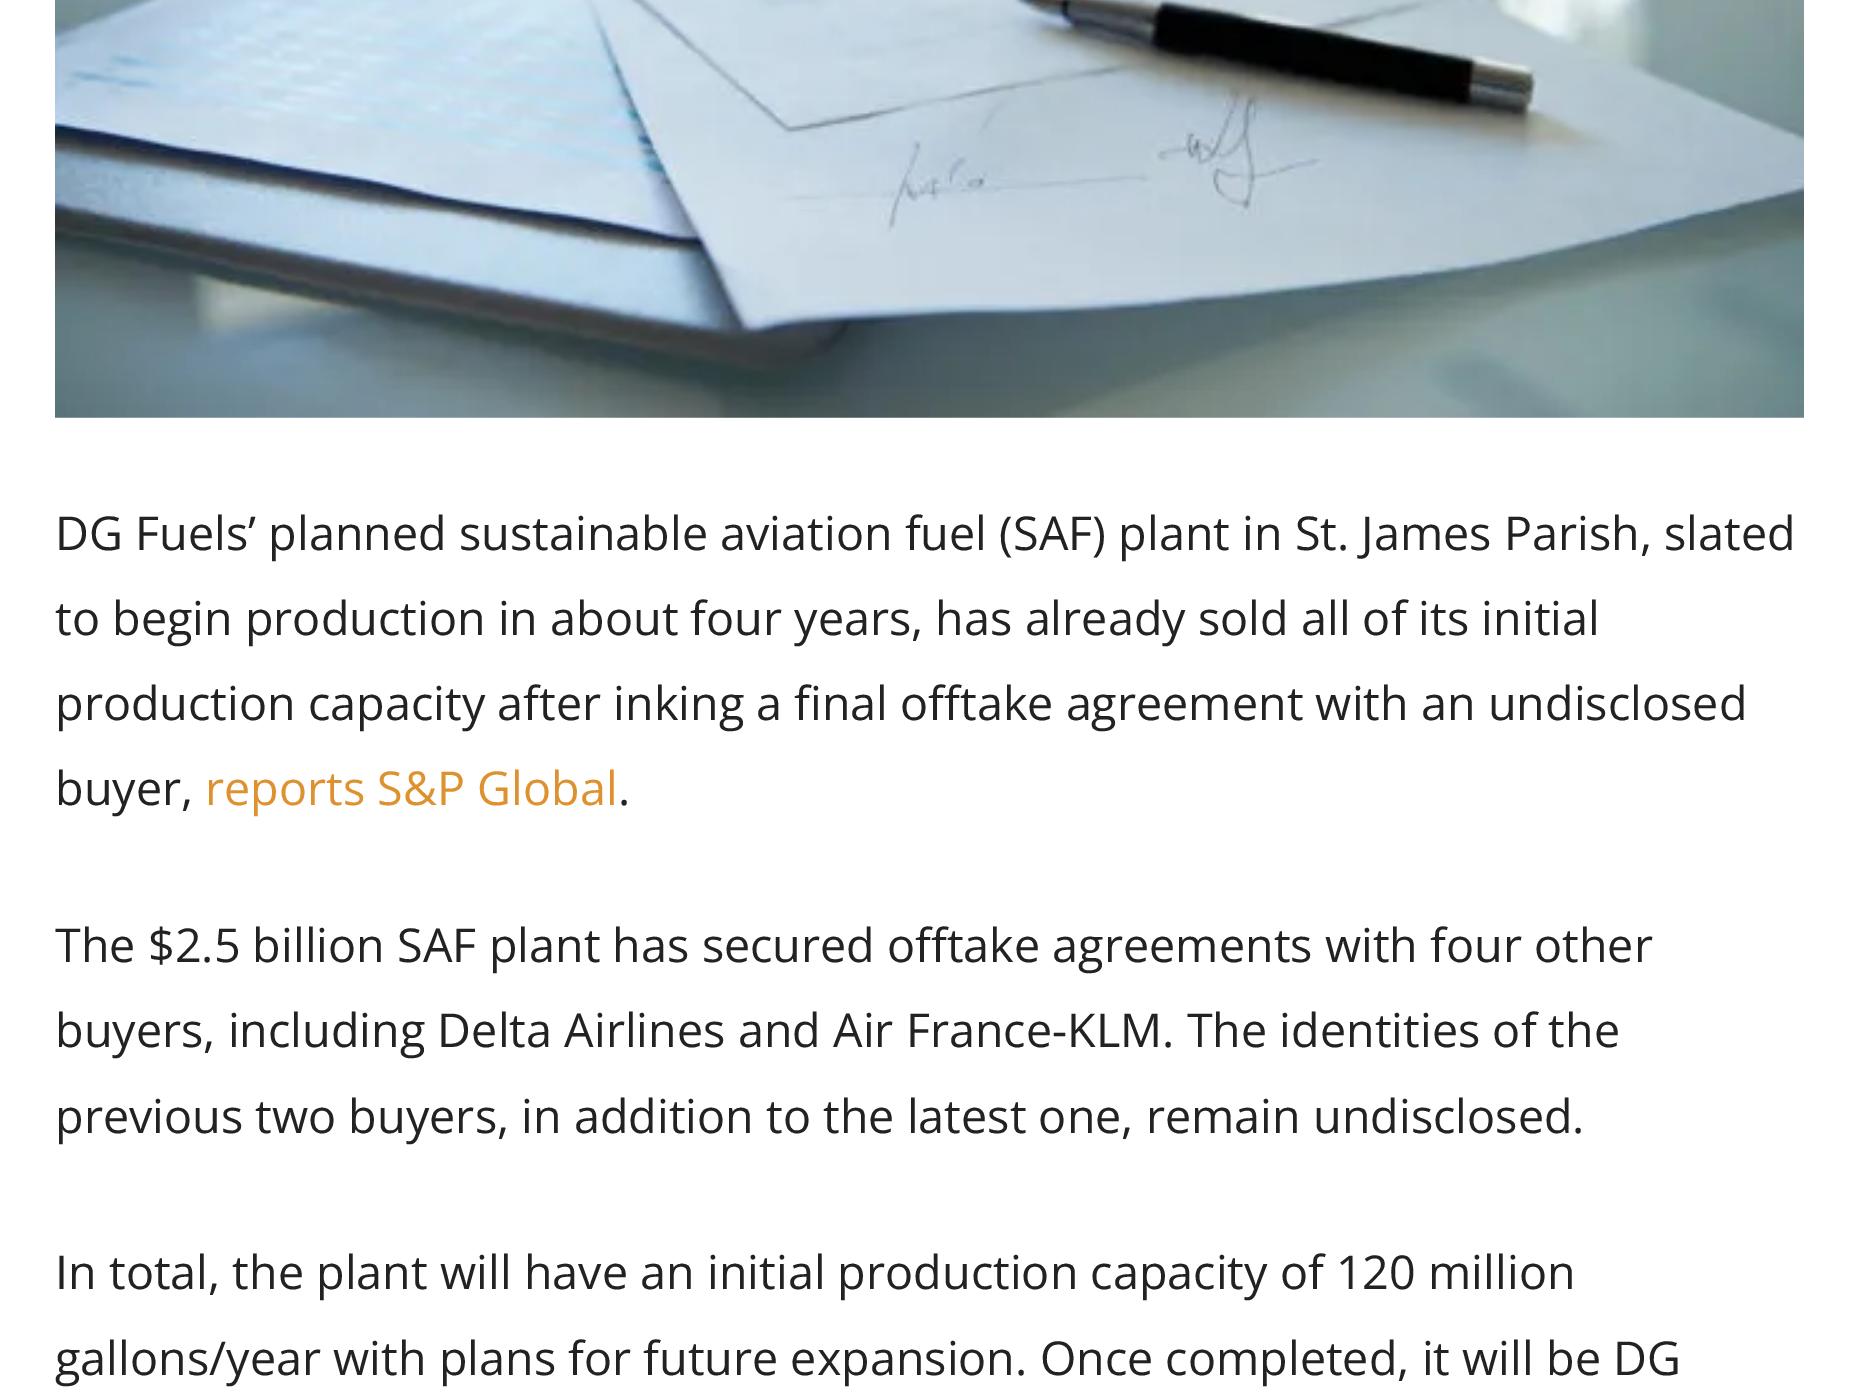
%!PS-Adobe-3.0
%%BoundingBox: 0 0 1857 1392
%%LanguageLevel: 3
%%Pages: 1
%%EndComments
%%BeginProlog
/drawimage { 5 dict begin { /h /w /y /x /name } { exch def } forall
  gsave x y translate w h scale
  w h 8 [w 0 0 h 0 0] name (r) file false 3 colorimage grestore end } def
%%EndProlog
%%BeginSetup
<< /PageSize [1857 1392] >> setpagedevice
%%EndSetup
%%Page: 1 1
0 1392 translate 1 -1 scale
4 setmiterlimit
1 setgray
0 0 1857 1392 rectfill
(images/1.raw) 55 0 1749 418 drawimage
/OpenSans-Regular [46.75 0 0 -46.75 0 0] selectfont
0.133 setgray
55 550 moveto (DG Fuels’ planned sustainable aviation fuel \(SAF\) plant in St. James Parish, slated) show
55 635 moveto (to begin production in about four years, has already sold all of its initial) show
55 720 moveto (production capacity after inking a final offtake agreement with an undisclosed) show
55 805 moveto (buyer,) show
0.871 0.573 0.184 setrgbcolor
205 805 moveto (reports S&P Global) show
0.133 setgray
618 805 moveto (.) show
55 962 moveto (The $2.5 billion SAF plant has secured offtake agreements with four other) show
55 1047 moveto (buyers, including Delta Airlines and Air France-KLM. The identities of the) show
55 1133 moveto (previous two buyers, in addition to the latest one, remain undisclosed.) show
55 1289 moveto (In total, the plant will have an initial production capacity of 120 million) show
55 1375 moveto (gallons/year with plans for future expansion. Once completed, it will be DG) show
showpage
%%EOF
